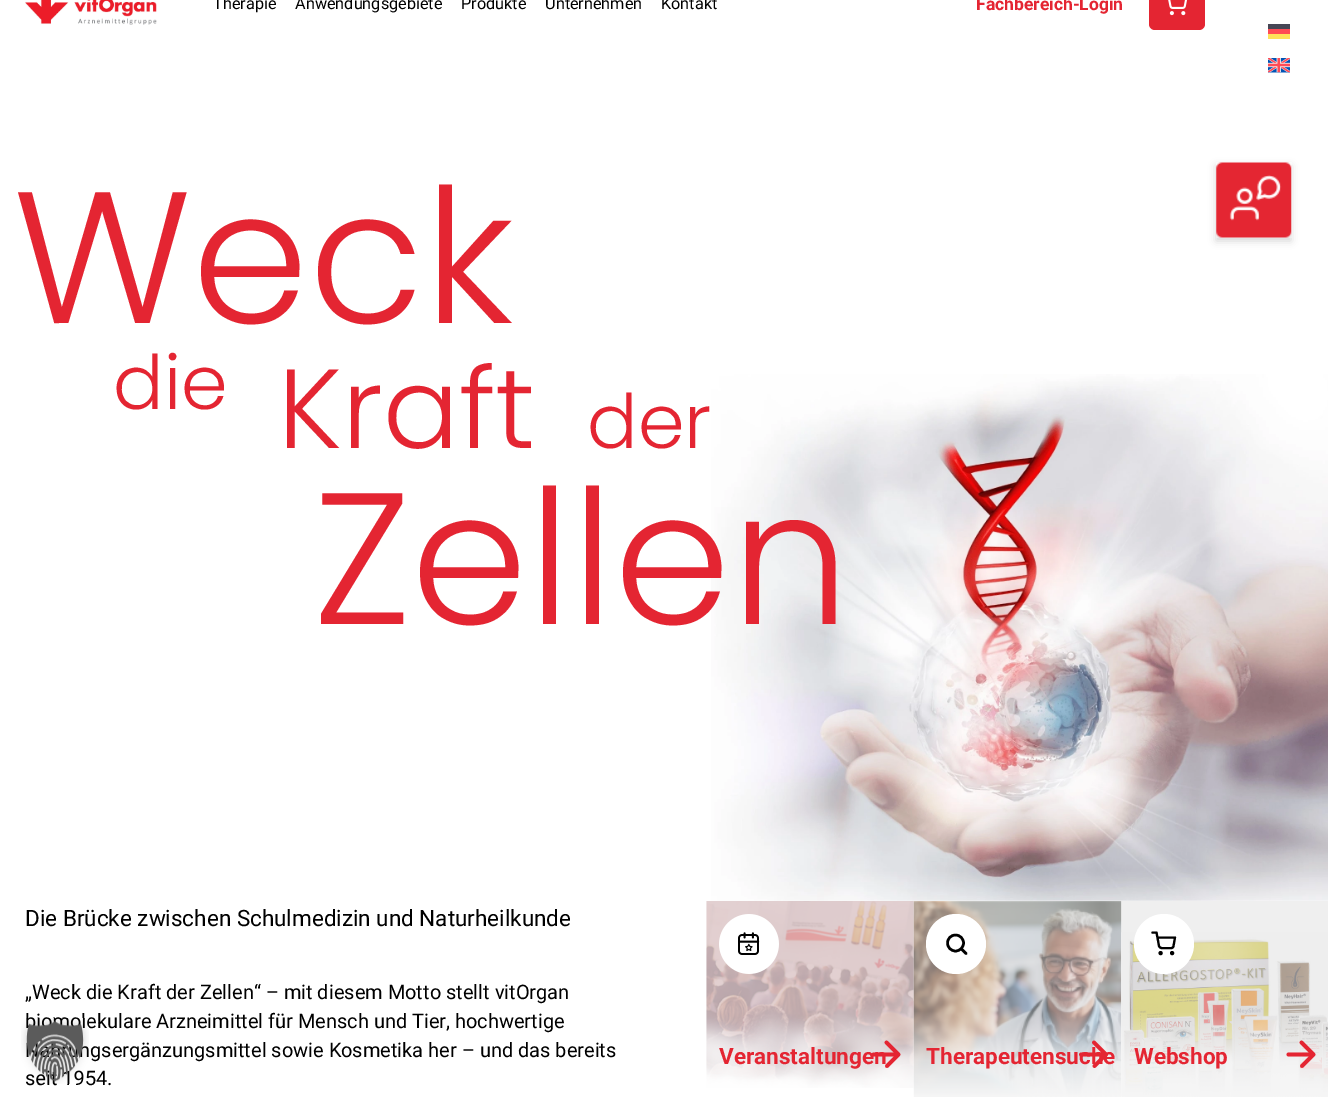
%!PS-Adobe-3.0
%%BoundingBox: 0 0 1328 1106
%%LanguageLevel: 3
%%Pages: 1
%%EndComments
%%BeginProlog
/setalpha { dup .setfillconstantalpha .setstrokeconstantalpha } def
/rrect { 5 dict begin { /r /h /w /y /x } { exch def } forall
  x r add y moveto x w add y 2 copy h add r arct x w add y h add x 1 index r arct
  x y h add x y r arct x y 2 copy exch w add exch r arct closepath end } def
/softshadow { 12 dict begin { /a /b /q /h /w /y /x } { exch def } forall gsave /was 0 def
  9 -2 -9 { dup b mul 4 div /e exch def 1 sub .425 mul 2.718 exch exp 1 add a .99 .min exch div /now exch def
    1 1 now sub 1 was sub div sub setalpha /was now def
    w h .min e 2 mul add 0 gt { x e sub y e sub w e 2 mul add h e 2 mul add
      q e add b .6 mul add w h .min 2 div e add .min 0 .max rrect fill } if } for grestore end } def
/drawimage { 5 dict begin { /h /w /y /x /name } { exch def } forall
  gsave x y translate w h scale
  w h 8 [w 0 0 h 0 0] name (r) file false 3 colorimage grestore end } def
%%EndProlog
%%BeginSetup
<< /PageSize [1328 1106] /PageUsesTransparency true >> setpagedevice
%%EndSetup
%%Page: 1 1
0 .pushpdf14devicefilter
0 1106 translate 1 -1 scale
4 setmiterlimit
1 setgray
0 0 1328 1106 rectfill
(images/1.raw) 25 0 132 25 drawimage
0.894 0.145 0.196 setrgbcolor
1149 -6 56 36 6 rrect fill
(images/2.raw) 1168 0 19 16 drawimage
0.275 0.275 0.333 setrgbcolor
1268 24 22 5 rectfill
1 0.294 0.333 setrgbcolor
1268 29 22 5 rectfill
1 0.882 0.353 setrgbcolor
1268 34 22 5 rectfill
(images/3.raw) 1268 58 22 15 drawimage
gsave
newpath 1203 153 moveto 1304 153 lineto 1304 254 lineto 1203 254 lineto closepath 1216 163 moveto 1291 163 lineto 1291 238 lineto 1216 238 lineto closepath eoclip newpath
0 setgray
1216 166 75 75 0 4 0.16 softshadow
grestore
(images/4.raw) 1216 162 76 76 drawimage
(images/5.raw) 711 374 617 527 drawimage
(images/6.raw) 706 901 208 187 drawimage
(images/7.raw) 719 914 60 60 drawimage
0.894 0.145 0.196 setrgbcolor
3.8 setlinewidth
1 setlinecap
newpath 873.5 1054.5 moveto 897.5 1054.5 lineto 886.5 1042.5 moveto 898.5 1054.5 lineto 898.5 1054.5 moveto 887 1066 lineto stroke
(images/8.raw) 913 901 209 196 drawimage
1 setgray
newpath 956 944 30 0 360 arc closepath fill
0 setgray
2.5 setlinewidth
0 setlinecap
newpath 955.5 943 8 0 360 arc closepath stroke
1 setlinecap
1 setlinejoin
newpath 966 953.5 moveto 961.5 949 lineto stroke
0.894 0.145 0.196 setrgbcolor
3.8 setlinewidth
0 setlinejoin
newpath 1081 1054.5 moveto 1105 1054.5 lineto 1094 1042.5 moveto 1106 1054.5 lineto 1106 1054.5 moveto 1094.5 1066 lineto stroke
(images/9.raw) 1121 901 207 196 drawimage
1 setgray
newpath 1164 944 30 0 360 arc closepath fill
0 setgray
2.1 setlinewidth
0 setlinecap
newpath 1160.6 953.1 1 0 360 arc closepath stroke
newpath 1172.1 953.1 1 0 360 arc closepath stroke
1 setlinecap
1 setlinejoin
newpath 1152.5 932.5 moveto 1156.5 932.5 lineto 1159 946 lineto 1159.5 947 1160.5 948 1161.5 948 curveto 1171.5 948 lineto 1172.5 948 1173.5 947 1173.5 946 curveto 1175 937.5 lineto 1157.5 937.5 lineto stroke
0.894 0.145 0.196 setrgbcolor
3.8 setlinewidth
0 setlinejoin
newpath 1288.5 1054.5 moveto 1312.5 1054.5 lineto 1301.5 1042.5 moveto 1313.5 1054.5 lineto 1313.5 1054.5 moveto 1302 1066 lineto stroke
/Roboto-Regular [16.25 0 0 -16.25 0 0] selectfont
0 setgray
213 9 moveto (Therapie) show
295 9 moveto (Anwendungsgebiete) show
461 9 moveto (Produkte) show
545 9 moveto (Unternehmen) show
661 9 moveto (Kontakt) show
/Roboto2-Bold [17.5 0 0 -17.5 0 0] selectfont
0.894 0.145 0.196 setrgbcolor
976 10 moveto (Fachbereich-Login) show
/Poppins-Light [187.5 0 0 -187.5 0 0] selectfont
13 323 moveto (Weck) show
/Poppins-Light [75 0 0 -75 0 0] selectfont
113 409 moveto (die) show
/Poppins-Light [112.5 0 0 -112.5 0 0] selectfont
278 448 moveto (Kraft) show
/Poppins-Light [75 0 0 -75 0 0] selectfont
587 448 moveto (der) show
/Poppins-Light [187.5 0 0 -187.5 0 0] selectfont
313 624 moveto (Zellen) show
/Roboto-Regular [22.5 0 0 -22.5 0 0] selectfont
0 setgray
25 926 moveto (Die Brücke zwischen Schulmedizin und Naturheilkunde) show
/Roboto-Regular [20 0 0 -20 0 0] selectfont
25 999 moveto („Weck die Kraft der Zellen“ – mit diesem Motto stellt vitOrgan) show
25 1028 moveto (biomolekulare Arzneimittel für Mensch und Tier, hochwertige) show
90 1057 moveto (gsergänzungsmittel sowie Kosmetika her – und das bereits) show
25 1085 moveto (seit 1954.) show
/Roboto-Bold [22.5 0 0 -22.5 0 0] selectfont
0.894 0.145 0.196 setrgbcolor
719 1064 moveto (Veranstaltungen) show
926 1064 moveto (Therapeutensuche) show
1134 1064 moveto (Webshop) show
(images/10.raw) 21 1018 68 66 drawimage
.poppdf14devicefilter showpage
%%EOF
